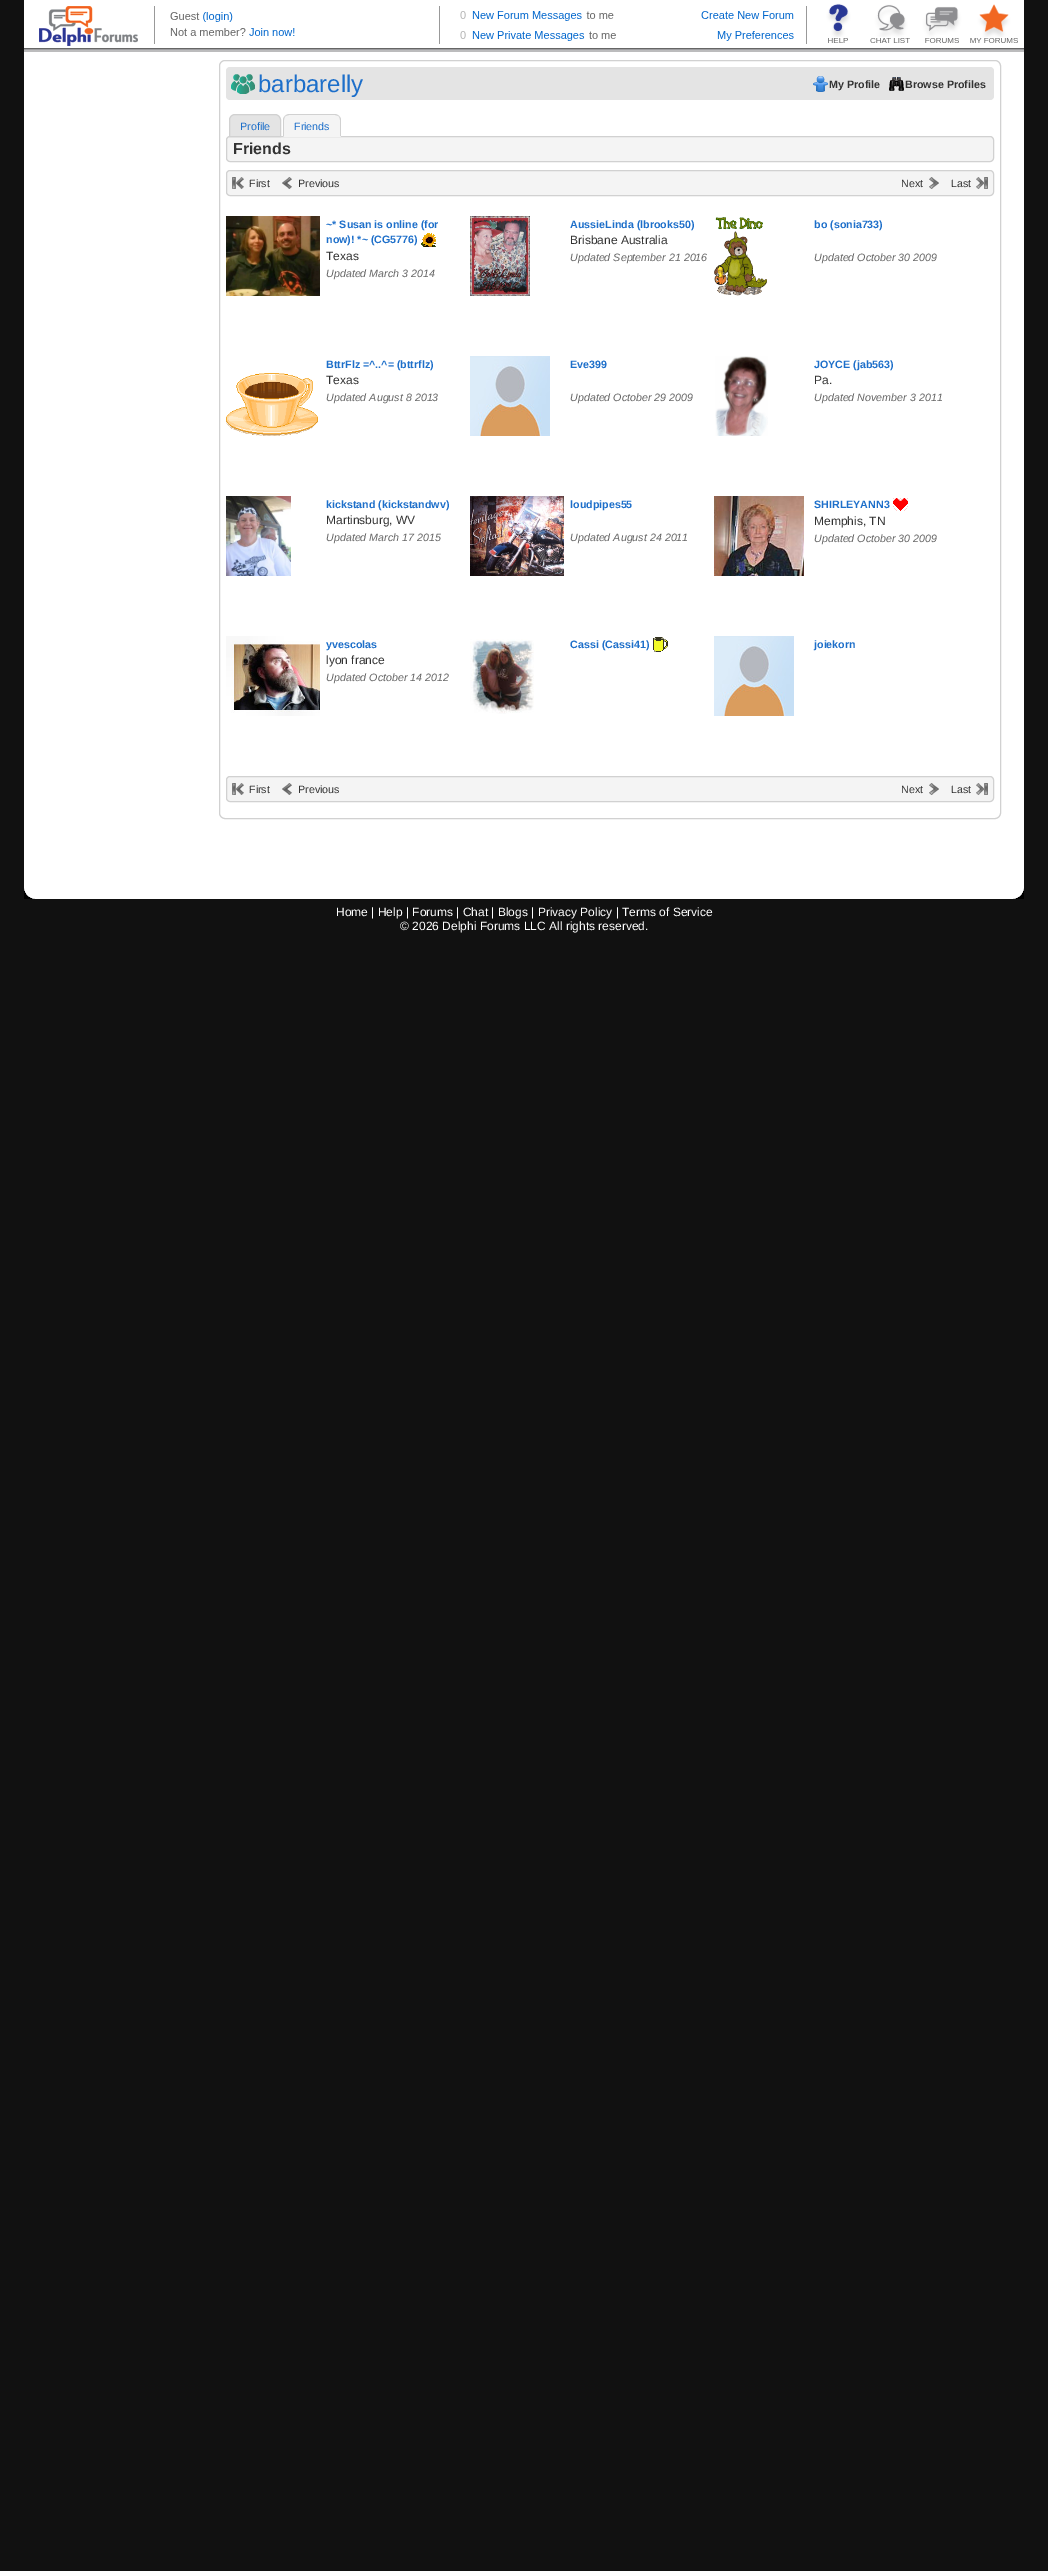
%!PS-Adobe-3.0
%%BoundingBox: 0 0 1048 2571
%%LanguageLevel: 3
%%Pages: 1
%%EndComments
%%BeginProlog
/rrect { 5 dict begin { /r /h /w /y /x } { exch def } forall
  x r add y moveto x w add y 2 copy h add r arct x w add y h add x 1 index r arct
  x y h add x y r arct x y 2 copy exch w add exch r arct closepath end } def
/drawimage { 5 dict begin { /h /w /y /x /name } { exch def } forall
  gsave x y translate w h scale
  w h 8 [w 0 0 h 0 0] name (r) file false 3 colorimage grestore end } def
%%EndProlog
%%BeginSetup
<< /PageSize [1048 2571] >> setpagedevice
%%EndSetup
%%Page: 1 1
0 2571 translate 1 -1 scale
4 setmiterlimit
0.067 setgray
0 0 1048 2571 rectfill
1 setgray
24 0 1000 888 rectfill
(images/1.raw) 24 888 1000 11 drawimage
(images/2.raw) 24 3 1000 49 drawimage
0.82 setgray
219.5 60.5 781 758 5.5 rrect stroke
0.894 setgray
226 67 768 33 4 rrect fill
(images/3.raw) 231 74 24 20 drawimage
(images/4.raw) 813 76 15 16 drawimage
(images/5.raw) 889 77 15 14 drawimage
0.957 setgray
226.5 136.5 767 25 3.5 rrect gsave fill grestore
0.82 setgray
stroke
0.894 setgray
newpath 235 114.5 moveto 275 114.5 lineto 278 114.5 280.5 117 280.5 120 curveto 280.5 136.5 lineto 229.5 136.5 lineto 229.5 120 lineto 229.5 117 232 114.5 235 114.5 curveto closepath gsave fill grestore
0.82 setgray
stroke
0.957 setgray
newpath 289 114 moveto 335 114 lineto 338.5 114 341 116.5 341 120 curveto 341 137 lineto 283 137 lineto 283 120 lineto 283 116.5 285.5 114 289 114 curveto closepath fill
0.82 setgray
newpath 289 114 moveto 288 114 286 115 285 116 curveto 286 116 288 115 289 115 curveto 335 115 lineto 336 115 338 116 339 116 curveto 338 115 336 114 335 114 curveto closepath 341 137 moveto 341 120 lineto 341 118.5 340 117 339 116 curveto 338.5 116.5 lineto 339.5 117 340 118.5 340 120 curveto 340 136 lineto closepath fill
0.957 setgray
newpath 341 137 moveto 340 136 lineto 284 136 lineto 283 137 lineto closepath fill
0.82 setgray
newpath 283 137 moveto 284 136 lineto 284 120 lineto 284 118.5 284.5 117 285.5 116.5 curveto 285 116 lineto 284 117 283 118.5 283 120 curveto closepath fill
0.957 setgray
226.5 170.5 767 25 3.5 rrect gsave fill grestore
0.82 setgray
stroke
(images/6.raw) 232 177 12 12 drawimage
(images/7.raw) 282 177 10 12 drawimage
(images/8.raw) 929 177 10 12 drawimage
(images/9.raw) 976 177 12 12 drawimage
(images/10.raw) 226 216 94 80 drawimage
(images/11.raw) 421 233 15 14 drawimage
(images/12.raw) 470 216 60 80 drawimage
(images/13.raw) 714 217 53 79 drawimage
(images/14.raw) 226 373 92 63 drawimage
(images/15.raw) 470 356 80 80 drawimage
(images/16.raw) 715 356 53 80 drawimage
(images/17.raw) 226 496 65 80 drawimage
(images/18.raw) 470 496 94 80 drawimage
(images/19.raw) 714 496 90 80 drawimage
(images/20.raw) 893 498 15 13 drawimage
(images/21.raw) 226 636 94 80 drawimage
(images/22.raw) 470 639 64 75 drawimage
(images/23.raw) 653 637 15 15 drawimage
(images/15.raw) 714 636 80 80 drawimage
0.957 setgray
226.5 776.5 767 25 3.5 rrect gsave fill grestore
0.82 setgray
stroke
(images/6.raw) 232 783 12 12 drawimage
(images/7.raw) 282 783 10 12 drawimage
(images/8.raw) 929 783 10 12 drawimage
(images/9.raw) 976 783 12 12 drawimage
/LiberationSans-Regular [24 0 0 -24 0 0] selectfont
0.114 0.435 0.792 setrgbcolor
258 92 moveto (barbarelly) show
/LiberationSans-Bold [10.7 0 0 -10.7 0 0] selectfont
0.2 setgray
829 88 moveto (My Profile) show
905 88 moveto (Browse Profiles) show
/LiberationSans-Regular [10.7 0 0 -10.7 0 0] selectfont
0.114 0.435 0.792 setrgbcolor
240 130 moveto (Profile) show
294 130 moveto (Friends) show
/LiberationSans-Bold [16 0 0 -16 0 0] selectfont
0.2 setgray
233 154 moveto (Friends) show
/LiberationSans-Regular [10.7 0 0 -10.7 0 0] selectfont
249 187 moveto (First) show
298 187 moveto (Previous) show
901 187 moveto (Next) show
951 187 moveto (Last) show
/LiberationSans-Bold [10.7 0 0 -10.7 0 0] selectfont
0.114 0.435 0.792 setrgbcolor
326 228 moveto (~* Susan is online \(for) show
326 243 moveto (now\)! *~ \(CG5776\)) show
/LiberationSans-Regular [12 0 0 -12 0 0] selectfont
0.2 setgray
326 260 moveto (Texas) show
/LiberationSans-Italic [10.7 0 0 -10.7 0 0] selectfont
0.4 setgray
326 277 moveto (Updated March 3 2014) show
/LiberationSans-Bold [10.7 0 0 -10.7 0 0] selectfont
0.114 0.435 0.792 setrgbcolor
570 228 moveto (AussieLinda \(lbrooks50\)) show
/LiberationSans-Regular [12 0 0 -12 0 0] selectfont
0.2 setgray
570 244 moveto (Brisbane Australia) show
/LiberationSans-Italic [10.7 0 0 -10.7 0 0] selectfont
0.4 setgray
570 261 moveto (Updated September 21 2016) show
/LiberationSans-Bold [10.7 0 0 -10.7 0 0] selectfont
0.114 0.435 0.792 setrgbcolor
814 228 moveto (bo \(sonia733\)) show
/LiberationSans-Italic [10.7 0 0 -10.7 0 0] selectfont
0.4 setgray
814 261 moveto (Updated October 30 2009) show
/LiberationSans-Bold [10.7 0 0 -10.7 0 0] selectfont
0.114 0.435 0.792 setrgbcolor
326 368 moveto (BttrFlz =^..^= \(bttrflz\)) show
/LiberationSans-Regular [12 0 0 -12 0 0] selectfont
0.2 setgray
326 384 moveto (Texas) show
/LiberationSans-Italic [10.7 0 0 -10.7 0 0] selectfont
0.4 setgray
326 401 moveto (Updated August 8 2013) show
/LiberationSans-Bold [10.7 0 0 -10.7 0 0] selectfont
0.114 0.435 0.792 setrgbcolor
570 368 moveto (Eve399) show
/LiberationSans-Italic [10.7 0 0 -10.7 0 0] selectfont
0.4 setgray
570 401 moveto (Updated October 29 2009) show
/LiberationSans-Bold [10.7 0 0 -10.7 0 0] selectfont
0.114 0.435 0.792 setrgbcolor
814 368 moveto (JOYCE \(jab563\)) show
/LiberationSans-Regular [12 0 0 -12 0 0] selectfont
0.2 setgray
814 384 moveto (Pa.) show
/LiberationSans-Italic [10.7 0 0 -10.7 0 0] selectfont
0.4 setgray
814 401 moveto (Updated November 3 2011) show
/LiberationSans-Bold [10.7 0 0 -10.7 0 0] selectfont
0.114 0.435 0.792 setrgbcolor
326 508 moveto (kickstand \(kickstandwv\)) show
/LiberationSans-Regular [12 0 0 -12 0 0] selectfont
0.2 setgray
326 524 moveto (Martinsburg, WV) show
/LiberationSans-Italic [10.7 0 0 -10.7 0 0] selectfont
0.4 setgray
326 541 moveto (Updated March 17 2015) show
/LiberationSans-Bold [10.7 0 0 -10.7 0 0] selectfont
0.114 0.435 0.792 setrgbcolor
570 508 moveto (loudpipes55) show
/LiberationSans-Italic [10.7 0 0 -10.7 0 0] selectfont
0.4 setgray
570 541 moveto (Updated August 24 2011) show
/LiberationSans-Bold [10.7 0 0 -10.7 0 0] selectfont
0.114 0.435 0.792 setrgbcolor
814 508 moveto (SHIRLEYANN3) show
/LiberationSans-Regular [12 0 0 -12 0 0] selectfont
0.2 setgray
814 525 moveto (Memphis, TN) show
/LiberationSans-Italic [10.7 0 0 -10.7 0 0] selectfont
0.4 setgray
814 542 moveto (Updated October 30 2009) show
/LiberationSans-Bold [10.7 0 0 -10.7 0 0] selectfont
0.114 0.435 0.792 setrgbcolor
326 648 moveto (yvescolas) show
/LiberationSans-Regular [12 0 0 -12 0 0] selectfont
0.2 setgray
326 664 moveto (lyon france) show
/LiberationSans-Italic [10.7 0 0 -10.7 0 0] selectfont
0.4 setgray
326 681 moveto (Updated October 14 2012) show
/LiberationSans-Bold [10.7 0 0 -10.7 0 0] selectfont
0.114 0.435 0.792 setrgbcolor
570 648 moveto (Cassi \(Cassi41\)) show
814 648 moveto (joiekorn) show
/LiberationSans-Regular [10.7 0 0 -10.7 0 0] selectfont
0.2 setgray
249 793 moveto (First) show
298 793 moveto (Previous) show
901 793 moveto (Next) show
951 793 moveto (Last) show
/LiberationSans-Regular [12 0 0 -12 0 0] selectfont
1 setgray
336 916 moveto (Home | Help | Forums | Chat | Blogs | Privacy Policy | Terms of Service) show
400 930 moveto (© 2026 Delphi Forums LLC All rights reserved.) show
showpage
%%EOF
